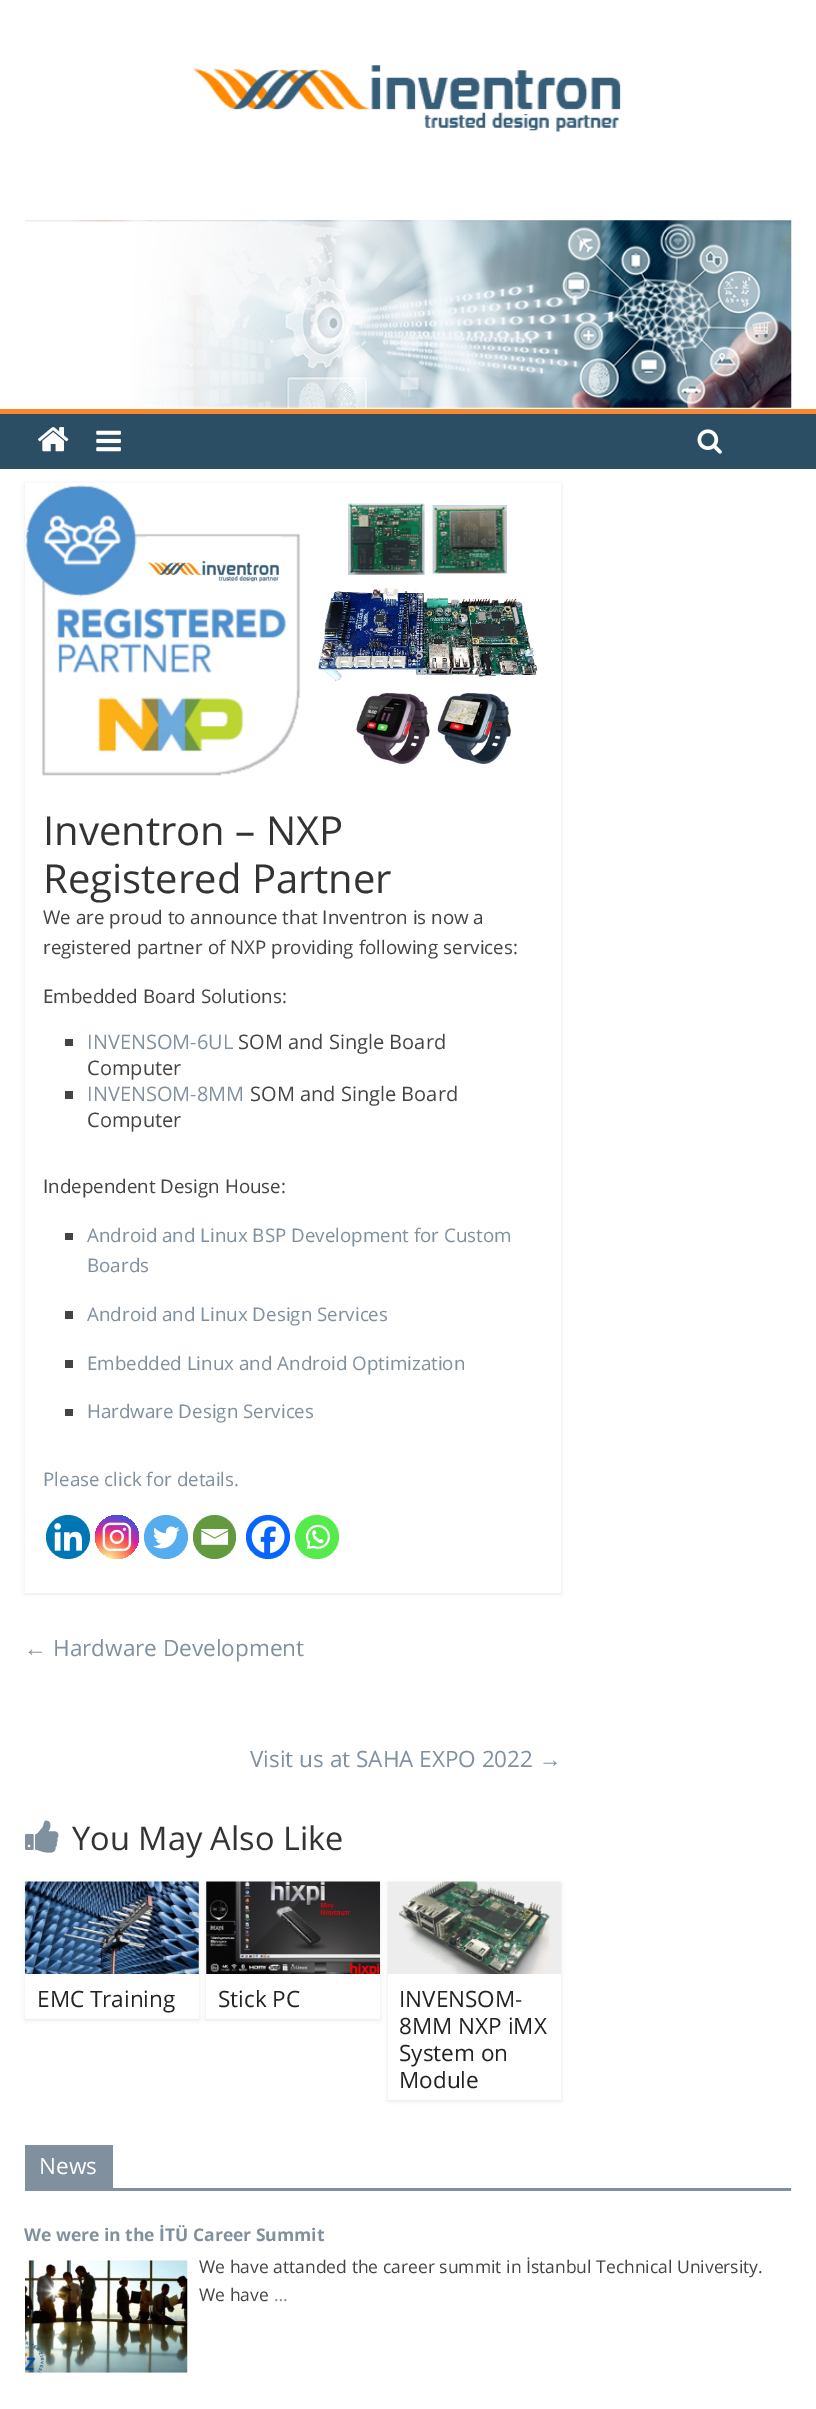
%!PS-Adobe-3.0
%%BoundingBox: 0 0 816 2409
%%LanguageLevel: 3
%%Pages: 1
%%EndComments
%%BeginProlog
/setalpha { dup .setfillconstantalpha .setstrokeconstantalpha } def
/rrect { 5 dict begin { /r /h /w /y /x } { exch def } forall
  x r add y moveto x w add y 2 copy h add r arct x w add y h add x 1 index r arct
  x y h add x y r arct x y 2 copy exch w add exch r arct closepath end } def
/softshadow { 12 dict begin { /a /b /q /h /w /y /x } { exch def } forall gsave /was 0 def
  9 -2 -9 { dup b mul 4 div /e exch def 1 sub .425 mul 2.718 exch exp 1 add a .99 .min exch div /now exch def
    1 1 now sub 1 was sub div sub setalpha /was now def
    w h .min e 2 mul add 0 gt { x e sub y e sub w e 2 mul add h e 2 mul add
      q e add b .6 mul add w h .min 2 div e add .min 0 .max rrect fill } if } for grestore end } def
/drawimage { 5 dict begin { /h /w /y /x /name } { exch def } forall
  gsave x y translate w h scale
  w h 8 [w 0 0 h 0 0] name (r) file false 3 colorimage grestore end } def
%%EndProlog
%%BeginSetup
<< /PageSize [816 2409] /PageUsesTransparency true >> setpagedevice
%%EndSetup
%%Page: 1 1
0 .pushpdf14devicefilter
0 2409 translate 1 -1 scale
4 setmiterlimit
1 setgray
0 0 816 2409 rectfill
(images/1.raw) 193 65 428 67 drawimage
(images/2.raw) 25 220 767 188 drawimage
0.173 0.306 0.392 setrgbcolor
0 414 816 55 rectfill
0.976 0.529 0.184 setrgbcolor
0 409 816 5 rectfill
(images/3.raw) 38 427 31 25 drawimage
(images/4.raw) 96 430 25 22 drawimage
(images/5.raw) 697 429 25 25 drawimage
gsave
newpath 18 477 moveto 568 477 lineto 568 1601 lineto 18 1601 lineto closepath 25 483 moveto 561 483 lineto 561 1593 lineto 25 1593 lineto closepath eoclip newpath
0 setgray
25 484 536 1110 0 2 0.1 softshadow
grestore
(images/6.raw) 25 485 513 291 drawimage
0.267 setgray
65 1039 8 7 rectfill
65 1091 8 8 rectfill
65 1233 8 7 rectfill
65 1311 8 8 rectfill
65 1360 8 8 rectfill
65 1409 8 7 rectfill
0 0.467 0.71 setrgbcolor
newpath 68 1537 22 0 360 arc closepath fill
(images/7.raw) 54 1523 28 28 drawimage
gsave newpath 117 1537 22 0 360 arc closepath clip newpath 108 1562 translate 56 56 scale
<< /ShadingType 3 /ColorSpace /DeviceRGB /Coords [0 0 0 0 0 1] /Extend [true true] /Function << /FunctionType 3 /Domain [0 1] /Functions [<< /FunctionType 2 /Domain [0 1] /C0 [0.992 0.957 0.592] /C1 [0.992 0.957 0.592] /N 1 >> << /FunctionType 2 /Domain [0 1] /C0 [0.992 0.957 0.592] /C1 [0.992 0.349 0.286] /N 1 >> << /FunctionType 2 /Domain [0 1] /C0 [0.992 0.349 0.286] /C1 [0.839 0.141 0.624] /N 1 >> << /FunctionType 2 /Domain [0 1] /C0 [0.839 0.141 0.624] /C1 [0.157 0.353 0.922] /N 1 >> << /FunctionType 2 /Domain [0 1] /C0 [0.157 0.353 0.922] /C1 [0.157 0.353 0.922] /N 1 >>] /Bounds [0.05 0.45 0.6 0.9] /Encode [0 1 0 1 0 1 0 1 0 1] >> >> shfill grestore
(images/8.raw) 102 1522 30 30 drawimage
0.333 0.675 0.933 setrgbcolor
newpath 166 1537 22 0 360 arc closepath fill
(images/9.raw) 153 1526 27 23 drawimage
0.392 0.604 0.247 setrgbcolor
193 1515 43 44 21.5 rrect fill
(images/10.raw) 201 1529 28 16 drawimage
0.027 0.396 0.996 setrgbcolor
newpath 268 1537 22 0 360 arc closepath fill
(images/11.raw) 251 1520 34 34 drawimage
0.333 0.922 0.298 setrgbcolor
newpath 317 1537 22 0 360 arc closepath fill
(images/12.raw) 305 1524 25 26 drawimage
(images/13.raw) 25 1820 34 33 drawimage
gsave
newpath 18 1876 moveto 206 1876 lineto 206 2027 lineto 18 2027 lineto closepath 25 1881 moveto 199 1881 lineto 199 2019 lineto 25 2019 lineto closepath eoclip newpath
0 setgray
25 1883 174 137 0 2 0.1 softshadow
grestore
(images/14.raw) 25 1881 174 93 drawimage
gsave
newpath 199 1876 moveto 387 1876 lineto 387 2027 lineto 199 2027 lineto closepath 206 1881 moveto 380 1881 lineto 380 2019 lineto 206 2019 lineto closepath eoclip newpath
0 setgray
206 1883 174 137 0 2 0.1 softshadow
grestore
(images/15.raw) 206 1881 174 93 drawimage
gsave
newpath 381 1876 moveto 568 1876 lineto 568 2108 lineto 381 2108 lineto closepath 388 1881 moveto 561 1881 lineto 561 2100 lineto 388 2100 lineto closepath eoclip newpath
0 setgray
388 1883 173 218 0 2 0.1 softshadow
grestore
(images/16.raw) 387 1881 174 93 drawimage
0.502 0.565 0.62 setrgbcolor
25 2188 766 3 rectfill
25 2145 88 43 rectfill
(images/17.raw) 25 2260 163 113 drawimage
/OpenSans-Regular [40 0 0 -40 0 0] selectfont
0.2 setgray
43 845 moveto (Inventron – NXP) show
43 893 moveto (Registered Partner) show
/OpenSans-Regular [18.75 0 0 -18.75 0 0] selectfont
0.267 setgray
43 924 moveto (We are proud to announce that Inventron is now a) show
43 954 moveto (registered partner of NXP providing following services:) show
43 1003 moveto (Embedded Board Solutions:) show
/OpenSans-Regular [20 0 0 -20 0 0] selectfont
0.502 0.565 0.62 setrgbcolor
87 1049 moveto (INVENSOM-6UL) show
0.267 setgray
238 1049 moveto (SOM and Single Board) show
87 1075 moveto (Computer) show
0.502 0.565 0.62 setrgbcolor
87 1101 moveto (INVENSOM-8MM) show
0.267 setgray
250 1101 moveto (SOM and Single Board) show
87 1127 moveto (Computer) show
/OpenSans-Regular [18.75 0 0 -18.75 0 0] selectfont
43 1193 moveto (Independent Design House:) show
0.502 0.565 0.62 setrgbcolor
87 1242 moveto (Android and Linux BSP Development for Custom) show
87 1272 moveto (Boards) show
87 1321 moveto (Android and Linux Design Services) show
87 1370 moveto (Embedded Linux and Android Optimization) show
87 1418 moveto (Hardware Design Services) show
43 1486 moveto (Please click for details.) show
/LiberationSerif-Regular [22.5 0 0 -22.5 0 0] selectfont
24 1656 moveto (←) show
/OpenSans-Regular [22.5 0 0 -22.5 0 0] selectfont
53 1656 moveto (Hardware Development) show
250 1767 moveto (Visit us at SAHA EXPO 2022) show
/LiberationSerif-Regular [22.5 0 0 -22.5 0 0] selectfont
539 1767 moveto (→) show
/OpenSans-Regular [32.5 0 0 -32.5 0 0] selectfont
0.2 setgray
72 1850 moveto (You May Also Like) show
/OpenSans-Regular [22.5 0 0 -22.5 0 0] selectfont
0.137 setgray
37 2007 moveto (EMC Training) show
218 2007 moveto (Stick PC) show
399 2007 moveto (INVENSOM-) show
399 2034 moveto (8MM NXP iMX) show
399 2061 moveto (System on) show
399 2088 moveto (Module) show
1 setgray
39 2174 moveto (News) show
/OpenSans-Bold [17.5 0 0 -17.5 0 0] selectfont
0.502 0.565 0.62 setrgbcolor
24 2241 moveto (We were in the İTÜ Career Summit) show
/OpenSans-Regular [17.5 0 0 -17.5 0 0] selectfont
0.267 setgray
199 2273 moveto (We have attanded the career summit in İstanbul Technical University.) show
199 2301 moveto (We have) show
0.502 0.565 0.62 setrgbcolor
274 2301 moveto (…) show
.poppdf14devicefilter showpage
%%EOF
